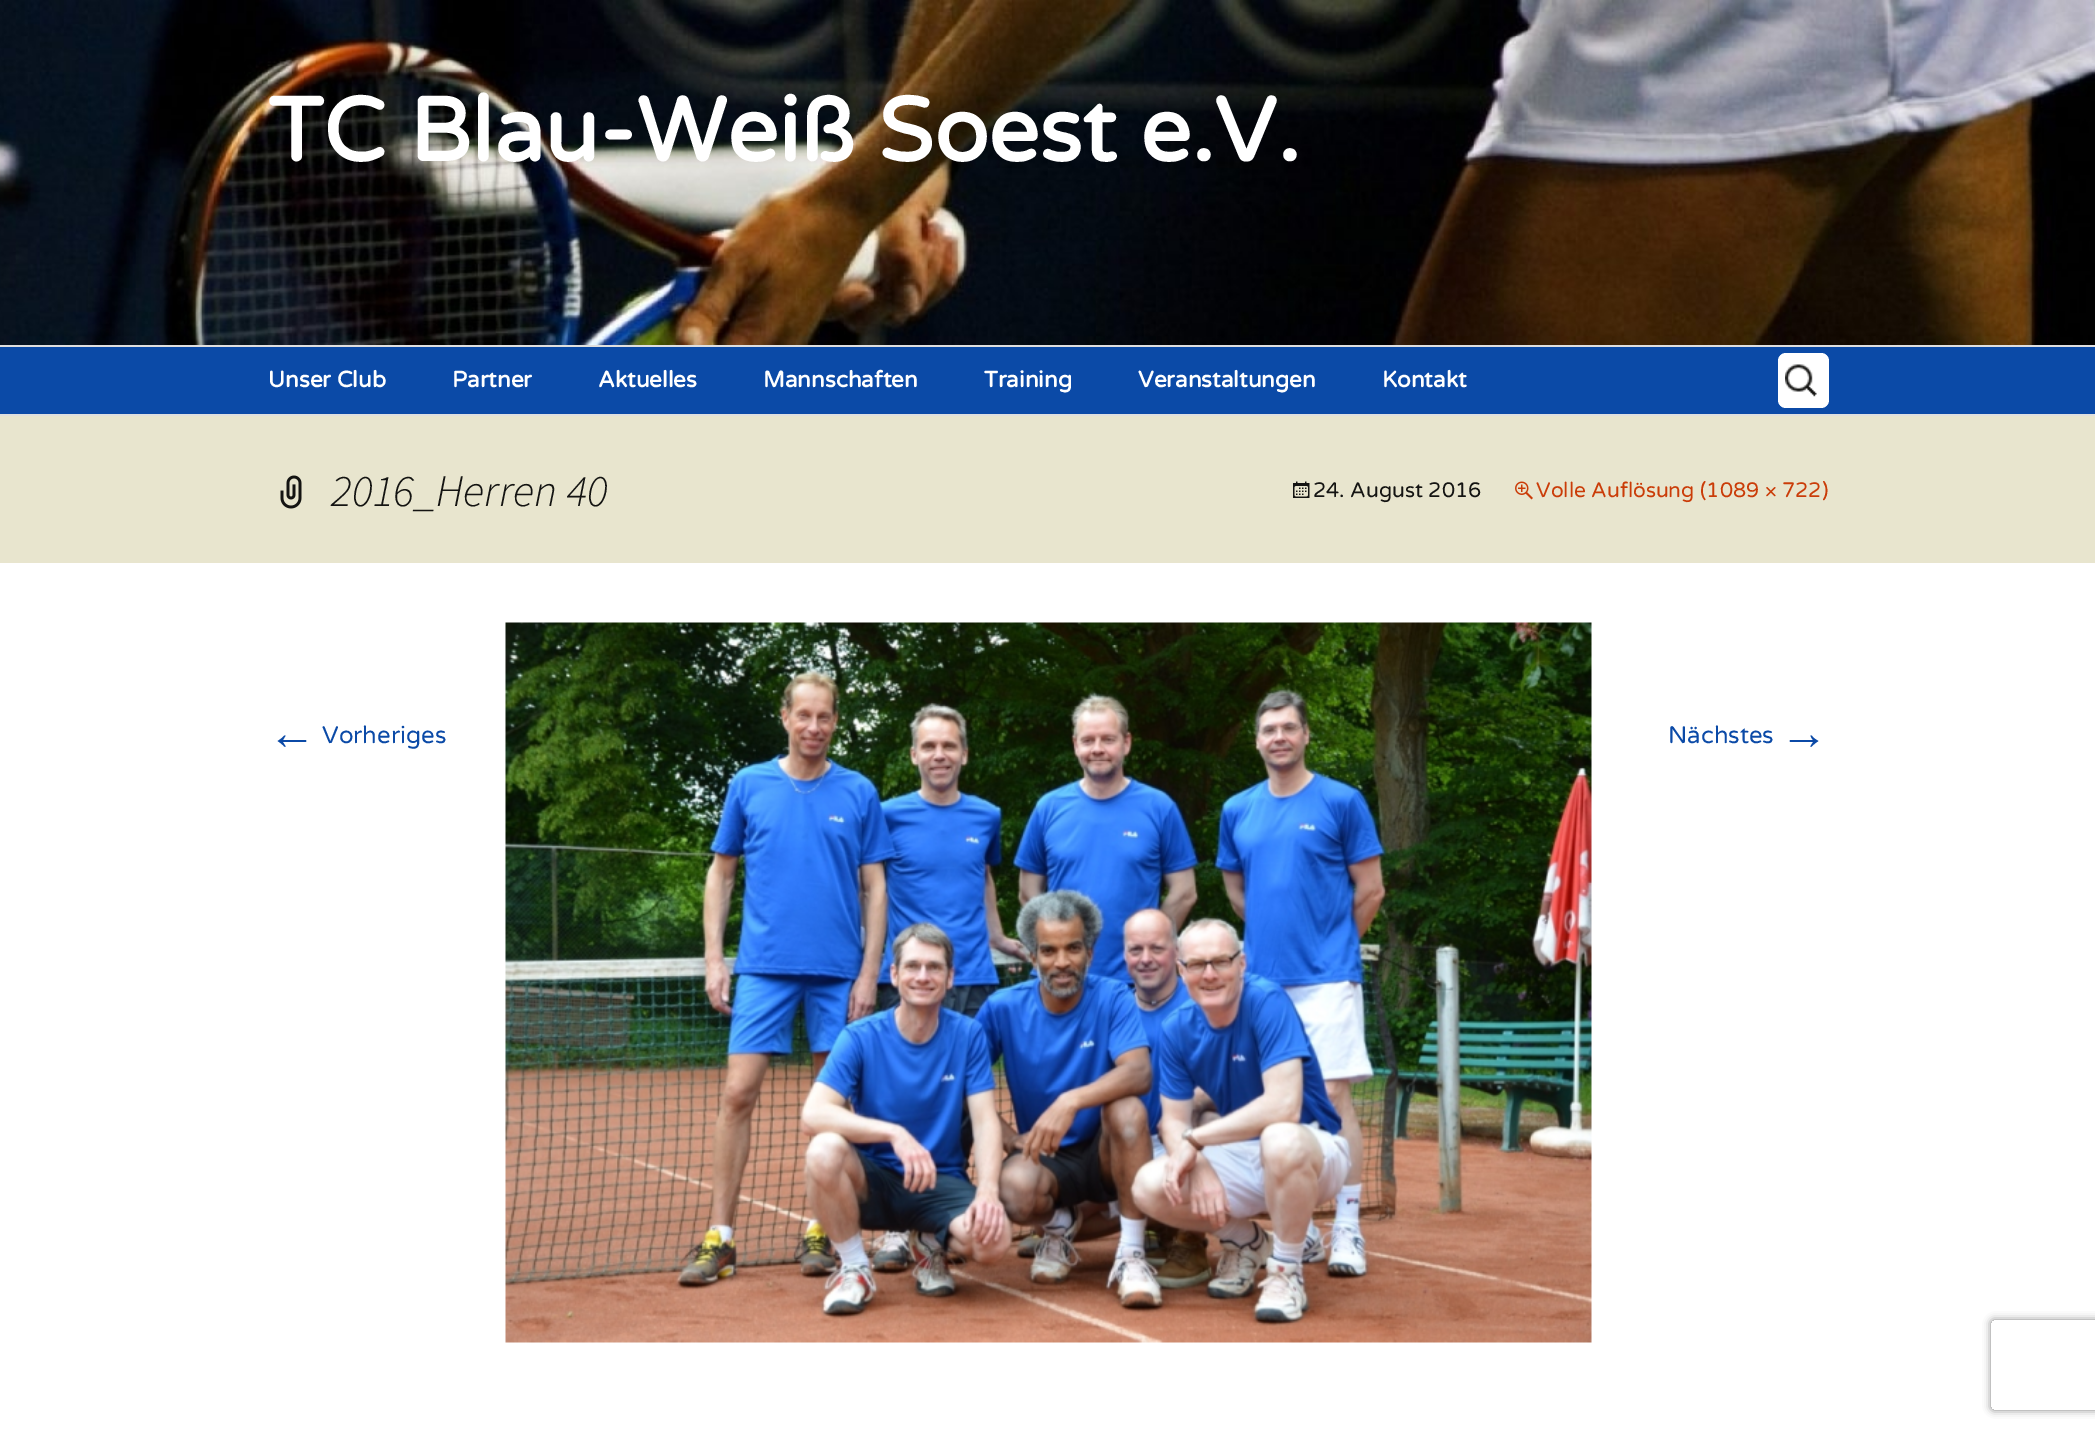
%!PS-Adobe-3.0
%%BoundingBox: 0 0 2095 1430
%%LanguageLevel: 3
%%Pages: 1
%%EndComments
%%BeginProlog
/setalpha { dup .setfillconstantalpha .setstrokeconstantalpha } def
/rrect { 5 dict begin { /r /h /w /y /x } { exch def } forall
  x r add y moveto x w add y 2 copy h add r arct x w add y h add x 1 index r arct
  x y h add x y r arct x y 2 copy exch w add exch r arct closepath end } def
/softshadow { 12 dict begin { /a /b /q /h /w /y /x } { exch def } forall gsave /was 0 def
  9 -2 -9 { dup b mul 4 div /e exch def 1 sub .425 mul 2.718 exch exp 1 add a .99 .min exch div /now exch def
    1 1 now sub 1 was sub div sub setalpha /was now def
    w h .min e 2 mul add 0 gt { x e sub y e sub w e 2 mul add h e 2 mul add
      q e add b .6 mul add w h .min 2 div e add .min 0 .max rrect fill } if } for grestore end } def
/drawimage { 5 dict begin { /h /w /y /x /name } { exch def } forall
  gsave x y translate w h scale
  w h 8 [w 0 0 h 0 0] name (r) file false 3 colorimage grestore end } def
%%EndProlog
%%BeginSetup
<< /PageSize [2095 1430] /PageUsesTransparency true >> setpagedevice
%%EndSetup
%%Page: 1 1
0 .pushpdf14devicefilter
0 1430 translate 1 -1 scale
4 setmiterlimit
1 setgray
0 0 2095 1430 rectfill
(images/1.raw) 0 0 2095 345 drawimage
0.043 0.29 0.655 setrgbcolor
0 347 2095 67 rectfill
0.875 setgray
0 345 2095 2 rectfill
0 414 2095 2 rectfill
1 setgray
1778 353 51 55 8 rrect fill
(images/2.raw) 1785 364 32 33 drawimage
0.91 0.898 0.808 setrgbcolor
0 416 2095 147 rectfill
(images/3.raw) 280 475 22 34 drawimage
(images/4.raw) 1293 481 17 17 drawimage
(images/5.raw) 1515 481 18 19 drawimage
(images/6.raw) 505 622 1087 721 drawimage
gsave
newpath 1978 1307 moveto 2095 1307 lineto 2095 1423 lineto 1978 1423 lineto closepath 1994 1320 moveto 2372 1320 lineto 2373.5 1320 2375 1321.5 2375 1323 curveto 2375 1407 lineto 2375 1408.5 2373.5 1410 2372 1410 curveto 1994 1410 lineto 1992.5 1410 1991 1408.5 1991 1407 curveto 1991 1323 lineto 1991 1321.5 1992.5 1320 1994 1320 curveto closepath eoclip newpath
0.502 setgray
1991 1320 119 90 3 4 1 softshadow
grestore
/VarelaRound-Bold [90 0 0 -90 0 0] selectfont
1 setgray
268 161 moveto (TC Blau-Weiß Soest e.V.) show
/VarelaRound-Bold [22.5 0 0 -22.5 0 0] selectfont
268 387 moveto (Unser Club) show
452 387 moveto (Partner) show
598 387 moveto (Aktuelles) show
763 387 moveto (Mannschaften) show
984 387 moveto (Training) show
1138 387 moveto (Veranstaltungen) show
1382 387 moveto (Kontakt) show
/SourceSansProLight-LightItalic [45 0 0 -45 0 0] selectfont
0.078 0.078 0.071 setrgbcolor
331 506 moveto (2016_Herren 40) show
/VarelaRound-Regular [21 0 0 -21 0 0] selectfont
1313 497 moveto (24. August 2016) show
0.792 0.235 0.031 setrgbcolor
1536 497 moveto (Volle Auflösung \(1089 × 722\)) show
/LiberationSans-Regular [48 0 0 -48 0 0] selectfont
0.043 0.29 0.655 setrgbcolor
268 749 moveto (←) show
/VarelaRound-Regular [24 0 0 -24 0 0] selectfont
322 743 moveto (Vorheriges) show
1668 743 moveto (Nächstes) show
/LiberationSans-Regular [48 0 0 -48 0 0] selectfont
1780 749 moveto (→) show
.poppdf14devicefilter showpage
%%EOF
